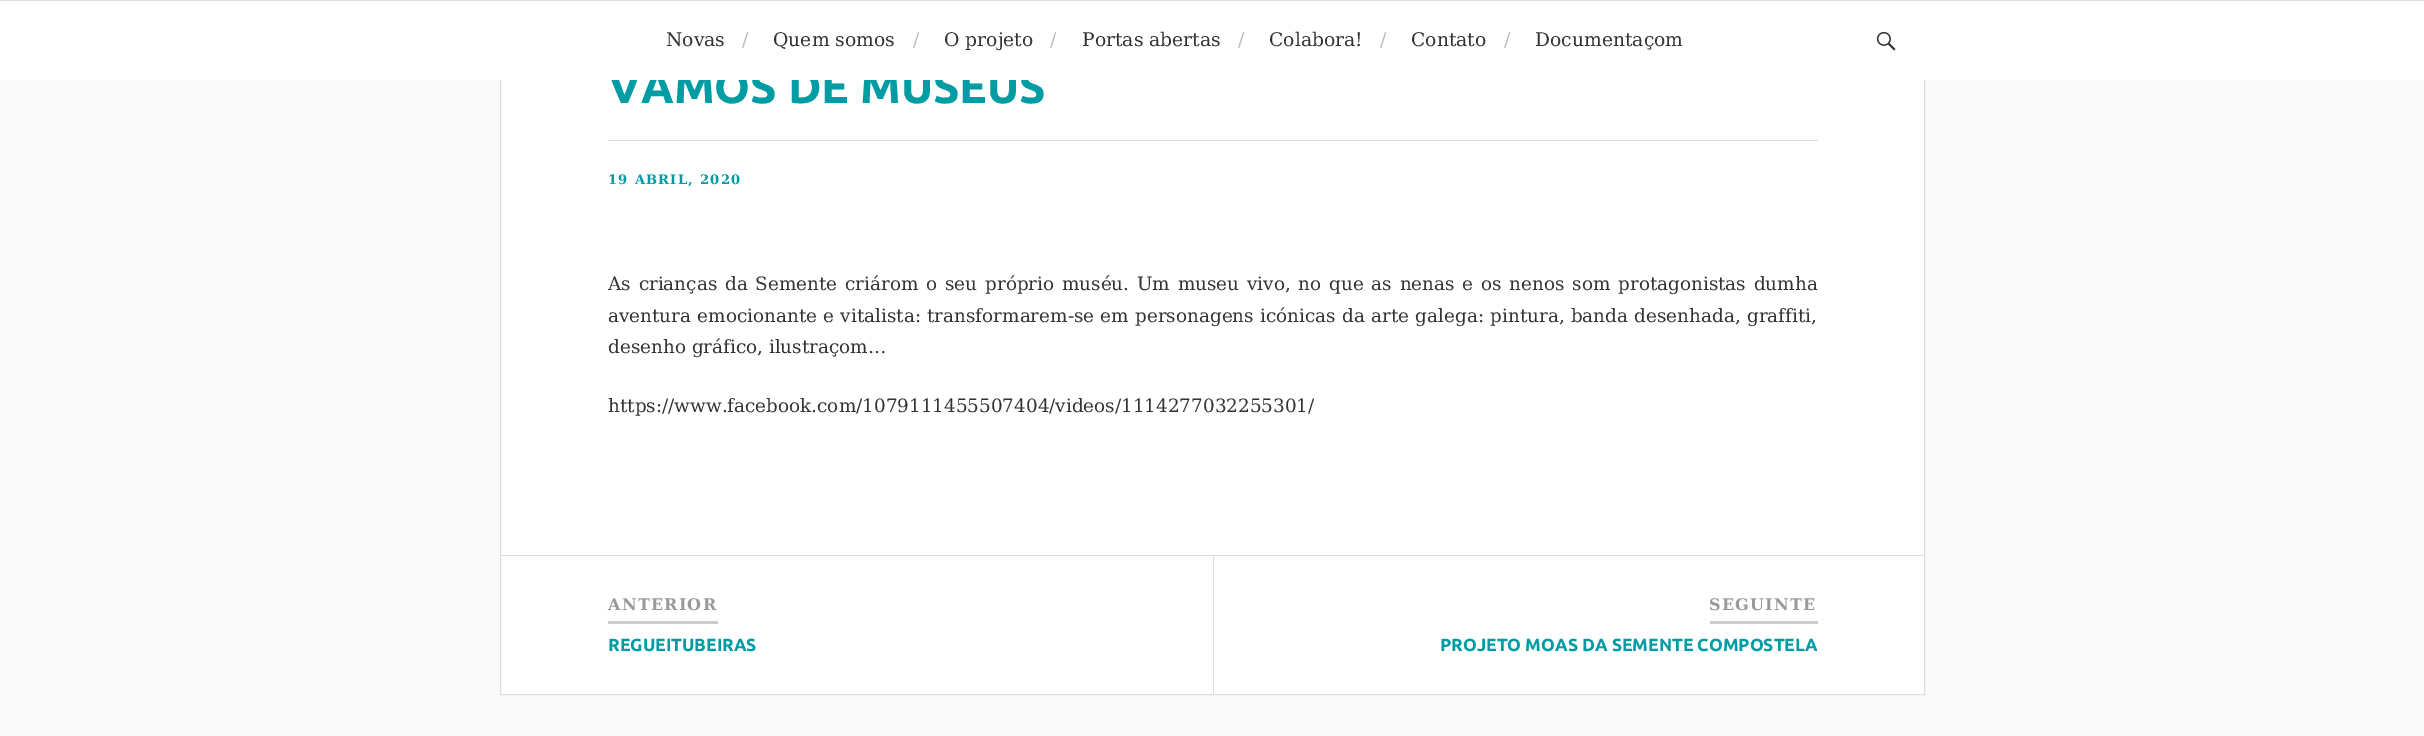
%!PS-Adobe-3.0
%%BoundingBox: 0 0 2424 736
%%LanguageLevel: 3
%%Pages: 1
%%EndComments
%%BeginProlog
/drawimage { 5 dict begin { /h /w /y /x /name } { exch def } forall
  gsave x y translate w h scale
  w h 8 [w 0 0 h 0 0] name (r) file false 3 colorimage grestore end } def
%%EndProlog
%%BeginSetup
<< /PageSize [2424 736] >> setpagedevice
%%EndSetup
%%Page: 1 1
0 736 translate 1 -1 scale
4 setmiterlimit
0.98 setgray
0 0 2424 736 rectfill
1 setgray
501 80 1423 614 rectfill
0.867 setgray
500.5 -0.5 1424 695 rectstroke
0 0 2424 1 rectfill
608 140 1210 1 rectfill
501 555 1423 1 rectfill
1213 556 1 138 rectfill
0.8 setgray
608 621 110 3 rectfill
1710 621 108 3 rectfill
/Ubuntu-Bold [45.5 0 0 -45.5 0 0] selectfont
0 0.612 0.639 setrgbcolor
608 103 moveto (VAMOS DE MUSÉUS) show
1 setgray
0 1 2424 79 rectfill
/DejaVuSerif-Regular [18.75 0 0 -18.75 0 0] selectfont
0.2 setgray
1535 46 moveto (Documentaçom) show
0.733 setgray
1504 46 moveto (/) show
0.2 setgray
1411 46 moveto (Contato) show
0.733 setgray
1380 46 moveto (/) show
0.2 setgray
1269 46 moveto (Colabora!) show
0.733 setgray
1238 46 moveto (/) show
0.2 setgray
1082 46 moveto (Portas abertas) show
0.733 setgray
1050 46 moveto (/) show
0.2 setgray
944 46 moveto (O projeto) show
0.733 setgray
913 46 moveto (/) show
0.2 setgray
773 46 moveto (Quem somos) show
0.733 setgray
742 46 moveto (/) show
0.2 setgray
666 46 moveto (Novas) show
(images/1.raw) 1876 31 20 20 drawimage
/DejaVuSerif-Bold [13.1 0 0 -13.1 0 0] selectfont
0 0.612 0.639 setrgbcolor
608 184 moveto 1.25 0 (19 ABRIL, 2020) ashow
/DejaVuSerif-Regular [18.38 0 0 -18.38 0 0] selectfont
0.2 setgray
608 290 moveto 2 0 32 (As crianças da Semente criárom o seu próprio muséu. Um museu vivo, no que as nenas e os nenos som protagonistas dumha) widthshow
608 322 moveto 0.5 0 32 (aventura emocionante e vitalista: transformarem-se em personagens icónicas da arte galega: pintura, banda desenhada, graffiti,) widthshow
608 353 moveto (desenho gráfico, ilustraçom…) show
608 412 moveto (https://www.facebook.com/1079111455507404/videos/1114277032255301/) show
/DejaVuSerif-Bold [16 0 0 -16 0 0] selectfont
0.6 setgray
608 610 moveto 1.25 0 (ANTERIOR) ashow
/Ubuntu-Bold [17.5 0 0 -17.5 0 0] selectfont
0 0.612 0.639 setrgbcolor
608 651 moveto (REGUEITUBEIRAS) show
/DejaVuSerif-Bold [16 0 0 -16 0 0] selectfont
0.6 setgray
1709 610 moveto 1.25 0 (SEGUINTE) ashow
/Ubuntu-Bold [17.5 0 0 -17.5 0 0] selectfont
0 0.612 0.639 setrgbcolor
1440 651 moveto (PROJETO MOAS DA SEMENTE COMPOSTELA) show
showpage
%%EOF
